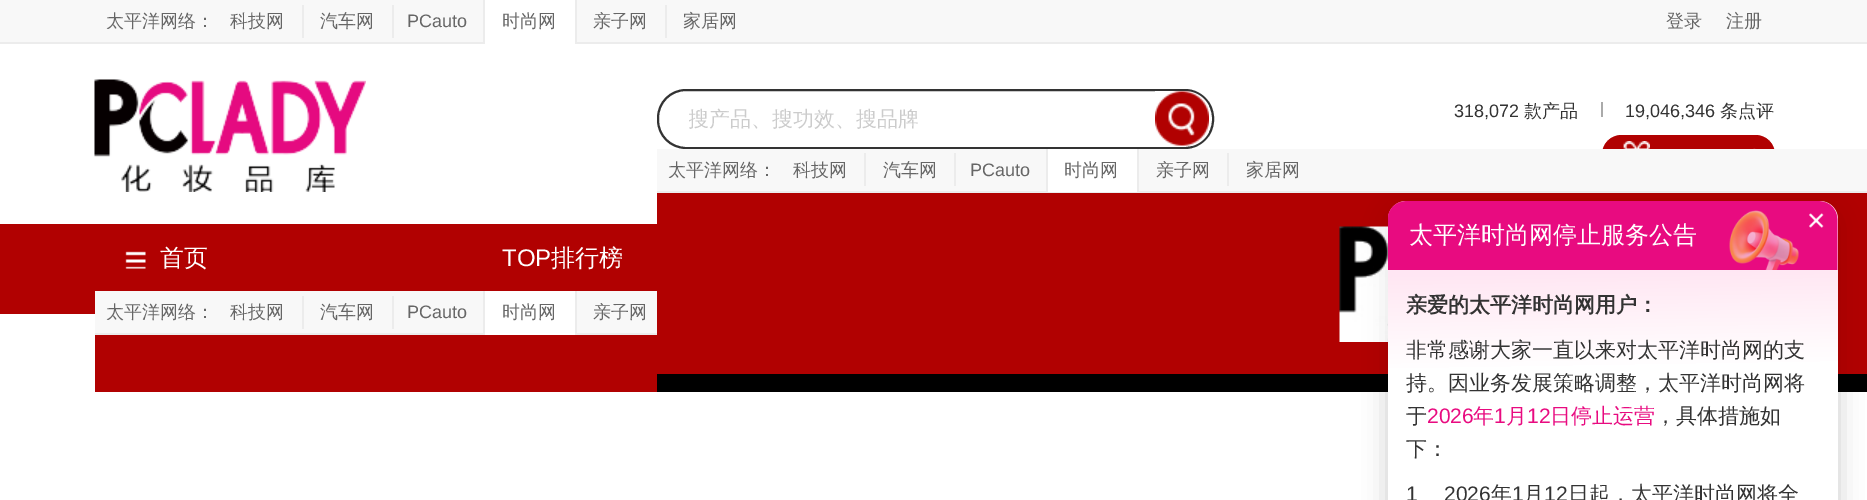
%!PS-Adobe-3.0
%%BoundingBox: 0 0 1867 500
%%LanguageLevel: 3
%%Pages: 1
%%EndComments
%%BeginProlog
/setalpha { dup .setfillconstantalpha .setstrokeconstantalpha } def
/rrect { 5 dict begin { /r /h /w /y /x } { exch def } forall
  x r add y moveto x w add y 2 copy h add r arct x w add y h add x 1 index r arct
  x y h add x y r arct x y 2 copy exch w add exch r arct closepath end } def
/softshadow { 12 dict begin { /a /b /q /h /w /y /x } { exch def } forall gsave /was 0 def
  9 -2 -9 { dup b mul 4 div /e exch def 1 sub .425 mul 2.718 exch exp 1 add a .99 .min exch div /now exch def
    1 1 now sub 1 was sub div sub setalpha /was now def
    w h .min e 2 mul add 0 gt { x e sub y e sub w e 2 mul add h e 2 mul add
      q e add b .6 mul add w h .min 2 div e add .min 0 .max rrect fill } if } for grestore end } def
/drawimage { 5 dict begin { /h /w /y /x /name } { exch def } forall
  gsave x y translate w h scale
  w h 8 [w 0 0 h 0 0] name (r) file false 3 colorimage grestore end } def
%%EndProlog
%%BeginSetup
<< /PageSize [1867 500] /PageUsesTransparency true >> setpagedevice
%%EndSetup
%%Page: 1 1
0 .pushpdf14devicefilter
0 500 translate 1 -1 scale
4 setmiterlimit
1 setgray
0 0 1867 500 rectfill
0.973 setgray
0 0 1867 42 rectfill
0.925 setgray
0 42 1867 2 rectfill
302 5 2 33 rectfill
392 5 2 33 rectfill
1 setgray
485 0 90 44 rectfill
0.925 setgray
575 0 2 44 rectfill
483 0 2 44 rectfill
665 5 2 33 rectfill
0.694 0.004 0.004 setrgbcolor
0 224 657 90 rectfill
(images/1.raw) 125 251 21 18 drawimage
1602 135 173 39 19.5 rrect fill
0 setgray
1388 207 450 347 18 12 0.1 softshadow
0.973 setgray
95 291 562 42 rectfill
0.925 setgray
95 333 562 2 rectfill
302 296 2 33 rectfill
392 296 2 33 rectfill
1 setgray
485 291 90 44 rectfill
0.925 setgray
575 291 2 44 rectfill
483 291 2 44 rectfill
0.694 0.004 0.004 setrgbcolor
95 335 562 57 rectfill
(images/2.raw) 94 79 272 113 drawimage
0.667 setgray
1601 102 2 15 rectfill
(images/3.raw) 1623 141 27 8 drawimage
(images/4.raw) 1753 148 11 1 drawimage
0.2 setgray
2 setlinewidth
658 90 555 58 28 rrect stroke
(images/5.raw) 1155 91 54 55 drawimage
0.694 0.004 0.004 setrgbcolor
657 193 1210 181 rectfill
(images/6.raw) 1339 226 49 116 drawimage
0 setgray
657 374 1210 18 rectfill
1388 207 450 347 18 12 0.1 softshadow
0.973 setgray
657 149 1210 42 rectfill
0.925 setgray
657 191 1210 2 rectfill
864 153 2 33 rectfill
954 153 2 33 rectfill
1 setgray
1048 149 89 43 rectfill
0.925 setgray
1137 149 2 43 rectfill
1046 149 2 43 rectfill
1227 153 2 33 rectfill
gsave 1388 201 450 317 18 rrect clip newpath
<< /ShadingType 2 /ColorSpace /DeviceRGB /Coords [1607 197 1618 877] /Extend [true true] /Function << /FunctionType 3 /Domain [0 1] /Functions [<< /FunctionType 2 /Domain [0 1] /C0 [1 0.902 0.953] /C1 [1 0.902 0.953] /N 1 >> << /FunctionType 2 /Domain [0 1] /C0 [1 0.902 0.953] /C1 [1 1 1] /N 1 >> << /FunctionType 2 /Domain [0 1] /C0 [1 1 1] /C1 [1 1 1] /N 1 >>] /Bounds [0.11 0.25] /Encode [0 1 0 1 0 1] >> >> shfill grestore
(images/7.raw) 1388 201 450 69 drawimage
(images/8.raw) 1809 213 15 15 drawimage
/WenQuanYiZenHei-Medium [18 0 0 -18 0 0] selectfont
0.4 setgray
106 27 moveto (太平洋网络：) show
230 27 moveto (科技网) show
320 27 moveto (汽车网) show
/LiberationSans-Regular [18 0 0 -18 0 0] selectfont
407 27 moveto (PCauto) show
/WenQuanYiZenHei-Medium [18 0 0 -18 0 0] selectfont
502 27 moveto (时尚网) show
593 27 moveto (亲子网) show
683 27 moveto (家居网) show
1666 27 moveto (登录) show
1726 27 moveto (注册) show
/WenQuanYiZenHei-Medium [24 0 0 -24 0 0] selectfont
1 setgray
160 266 moveto (首页) show
/WenQuanYiZenHei-Medium [18 0 0 -18 0 0] selectfont
0.4 setgray
106 318 moveto (太平洋网络：) show
230 318 moveto (科技网) show
320 318 moveto (汽车网) show
/LiberationSans-Regular [18 0 0 -18 0 0] selectfont
407 318 moveto (PCauto) show
/WenQuanYiZenHei-Medium [18 0 0 -18 0 0] selectfont
502 318 moveto (时尚网) show
593 318 moveto (亲子网) show
/LiberationSans-Regular [24 0 0 -24 0 0] selectfont
1 setgray
502 266 moveto (TOP) show
/WenQuanYiZenHei-Medium [24 0 0 -24 0 0] selectfont
551 266 moveto (排行榜) show
/LiberationSans-Regular [18 0 0 -18 0 0] selectfont
0.2 setgray
1454 117 moveto (318,072) show
/WenQuanYiZenHei-Medium [18 0 0 -18 0 0] selectfont
1524 117 moveto (款产品) show
/LiberationSans-Regular [18 0 0 -18 0 0] selectfont
1625 117 moveto (19,046,346) show
/WenQuanYiZenHei-Medium [18 0 0 -18 0 0] selectfont
1720 117 moveto (条点评) show
gsave
689 90 460 57 rectclip
/WenQuanYiZenHei-Medium [21 0 0 -21 0 0] selectfont
0.8 setgray
688 126 moveto (搜产品、搜功效、搜品牌) show
grestore
0.4 setgray
668 176 moveto (太平洋网络：) show
793 176 moveto (科技网) show
883 176 moveto (汽车网) show
/LiberationSans-Regular [18 0 0 -18 0 0] selectfont
970 176 moveto (PCauto) show
/WenQuanYiZenHei-Medium [18 0 0 -18 0 0] selectfont
1064 176 moveto (时尚网) show
1156 176 moveto (亲子网) show
1246 176 moveto (家居网) show
/WenQuanYiZenHei-Medium [24 0 0 -24 0 0] selectfont
1 setgray
1409 243 moveto (太平洋时尚网停止服务公告) show
/WenQuanYiZenHei-Bold [21 0 0 -21 0 0] selectfont
0.2 setgray
1406 312 moveto (亲爱的太平洋时尚网用户：) show
/WenQuanYiZenHei-Medium [21 0 0 -21 0 0] selectfont
1406 357 moveto (非常感谢大家一直以来对太平洋时尚网的支) show
1406 390 moveto (持。因业务发展策略调整，太平洋时尚网将) show
1406 423 moveto (于) show
/LiberationSans-Regular [21 0 0 -21 0 0] selectfont
0.91 0.043 0.502 setrgbcolor
1427 423 moveto (2026) show
/WenQuanYiZenHei-Medium [21 0 0 -21 0 0] selectfont
1473 423 moveto (年) show
/LiberationSans-Regular [21 0 0 -21 0 0] selectfont
1494 423 moveto (1) show
/WenQuanYiZenHei-Medium [21 0 0 -21 0 0] selectfont
1506 423 moveto (月) show
/LiberationSans-Regular [21 0 0 -21 0 0] selectfont
1527 423 moveto (12) show
/WenQuanYiZenHei-Medium [21 0 0 -21 0 0] selectfont
1550 423 moveto (日停止运营) show
0.2 setgray
1655 423 moveto (，具体措施如) show
1406 456 moveto (下：) show
/LiberationSans-Regular [21 0 0 -21 0 0] selectfont
1406 501 moveto (1) show
1444 501 moveto (2026) show
/WenQuanYiZenHei-Medium [21 0 0 -21 0 0] selectfont
1491 501 moveto (年) show
/LiberationSans-Regular [21 0 0 -21 0 0] selectfont
1512 501 moveto (1) show
/WenQuanYiZenHei-Medium [21 0 0 -21 0 0] selectfont
1523 501 moveto (月) show
/LiberationSans-Regular [21 0 0 -21 0 0] selectfont
1544 501 moveto (12) show
/WenQuanYiZenHei-Medium [21 0 0 -21 0 0] selectfont
1568 501 moveto (日起，太平洋时尚网将全) show
.poppdf14devicefilter showpage
%%EOF
